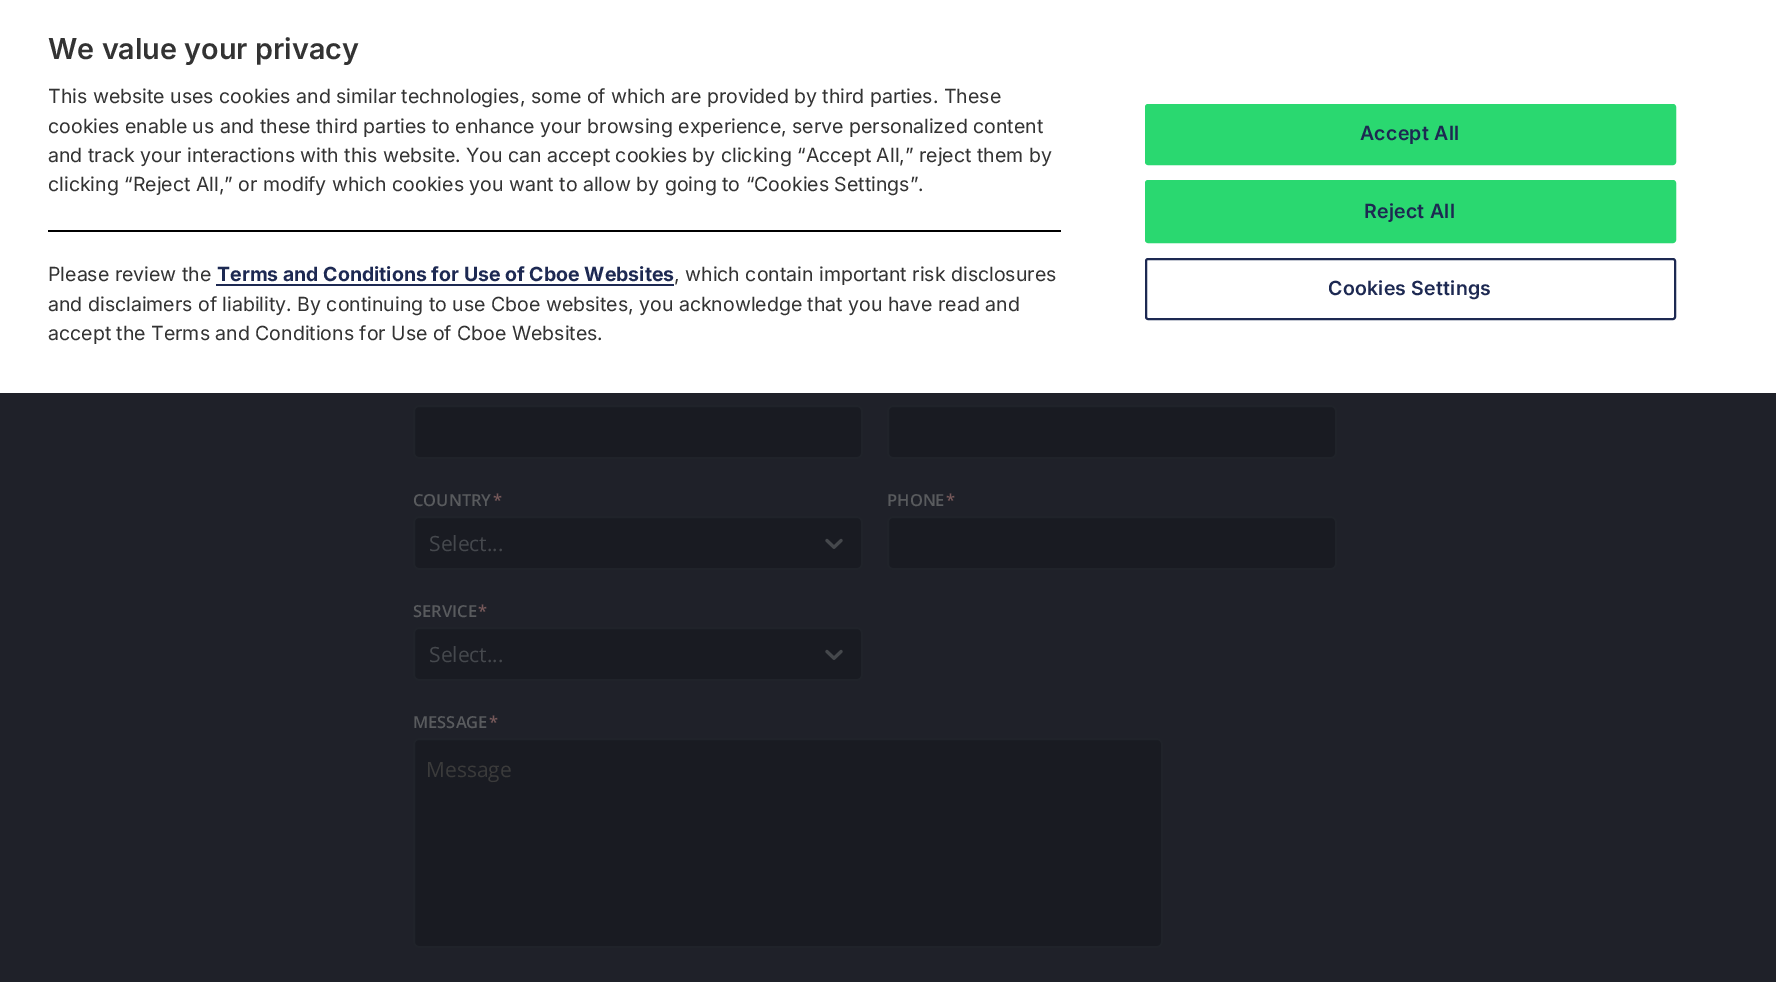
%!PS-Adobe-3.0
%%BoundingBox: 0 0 1776 982
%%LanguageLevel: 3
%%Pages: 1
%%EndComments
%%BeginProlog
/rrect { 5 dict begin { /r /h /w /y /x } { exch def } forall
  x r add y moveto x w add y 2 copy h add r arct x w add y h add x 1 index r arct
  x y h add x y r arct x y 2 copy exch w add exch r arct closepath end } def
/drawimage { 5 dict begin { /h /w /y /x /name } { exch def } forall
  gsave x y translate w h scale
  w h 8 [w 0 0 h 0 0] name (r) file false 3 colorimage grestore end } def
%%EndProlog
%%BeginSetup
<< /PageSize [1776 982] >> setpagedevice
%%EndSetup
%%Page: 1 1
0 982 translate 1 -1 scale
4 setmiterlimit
0.122 0.129 0.161 setrgbcolor
0 0 1776 982 rectfill
1 setgray
0 0 1776 393 rectfill
0 setgray
48 230 1013 2 rectfill
0.114 0.161 0.322 setrgbcolor
216 284 458 2 rectfill
0.165 0.847 0.439 setrgbcolor
1146 105 529 59 2 rrect gsave fill grestore
2 setlinewidth
stroke
1146 181 529 61 2 rrect gsave fill grestore
stroke
0.114 0.161 0.322 setrgbcolor
1146 259 529 60 2 rrect stroke
0.098 0.106 0.133 setrgbcolor
414 406 448 52 5 rrect gsave fill grestore
0.125 0.137 0.165 setrgbcolor
stroke
0.098 0.106 0.133 setrgbcolor
888 406 448 52 5 rrect gsave fill grestore
0.125 0.137 0.165 setrgbcolor
stroke
0.098 0.106 0.133 setrgbcolor
414 517 448 52 5 rrect gsave fill grestore
0.125 0.137 0.165 setrgbcolor
stroke
(images/1.raw) 825 538 18 11 drawimage
0.098 0.106 0.133 setrgbcolor
888 517 448 52 5 rrect gsave fill grestore
0.125 0.137 0.165 setrgbcolor
stroke
0.098 0.106 0.133 setrgbcolor
414 628 448 52 5 rrect gsave fill grestore
0.125 0.137 0.165 setrgbcolor
stroke
(images/1.raw) 825 649 18 11 drawimage
0.098 0.106 0.133 setrgbcolor
414 739 748 208 5 rrect gsave fill grestore
0.125 0.137 0.165 setrgbcolor
stroke
/Inter-SemiBold [28.75 0 0 -28.75 0 0] selectfont
0.2 setgray
48 59 moveto (We value your privacy) show
/Inter-Regular [19.5 0 0 -19.5 0 0] selectfont
48 103 moveto (This website uses cookies and similar technologies, some of which are provided by third parties. These) show
48 133 moveto (cookies enable us and these third parties to enhance your browsing experience, serve personalized content) show
48 162 moveto (and track your interactions with this website. You can accept cookies by clicking “Accept All,” reject them by) show
48 191 moveto (clicking “Reject All,” or modify which cookies you want to allow by going to “Cookies Settings”.) show
48 281 moveto (Please review the) show
/Inter-Bold [19.5 0 0 -19.5 0 0] selectfont
0.114 0.161 0.322 setrgbcolor
217 281 moveto (Terms and Conditions for Use of Cboe Websites) show
/Inter-Regular [19.5 0 0 -19.5 0 0] selectfont
0.2 setgray
674 281 moveto (, which contain important risk disclosures) show
48 311 moveto (and disclaimers of liability. By continuing to use Cboe websites, you acknowledge that you have read and) show
48 340 moveto (accept the Terms and Conditions for Use of Cboe Websites.) show
/Inter-SemiBold [19.5 0 0 -19.5 0 0] selectfont
0.114 0.161 0.322 setrgbcolor
1360 140 moveto 0.25 0 (Accept All) ashow
1364 218 moveto 0.25 0 (Reject All) ashow
1328 295 moveto 0.25 0 (Cookies Settings) ashow
/OpenSans-SemiBold [16.5 0 0 -16.5 0 0] selectfont
0.349 0.357 0.369 setrgbcolor
413 506 moveto (COUNTRY) show
0.463 0.349 0.353 setrgbcolor
493 506 moveto (*) show
/OpenSans-Regular [21 0 0 -21 0 0] selectfont
0.271 0.282 0.302 setrgbcolor
429 551 moveto (Select...) show
/OpenSans-SemiBold [16.5 0 0 -16.5 0 0] selectfont
0.349 0.357 0.369 setrgbcolor
887 506 moveto (PHONE) show
0.463 0.349 0.353 setrgbcolor
946 506 moveto (*) show
0.349 0.357 0.369 setrgbcolor
413 617 moveto (SERVICE) show
0.463 0.349 0.353 setrgbcolor
478 617 moveto (*) show
/OpenSans-Regular [21 0 0 -21 0 0] selectfont
0.271 0.282 0.302 setrgbcolor
429 662 moveto (Select...) show
/OpenSans-SemiBold [16.5 0 0 -16.5 0 0] selectfont
0.349 0.357 0.369 setrgbcolor
413 728 moveto (MESSAGE) show
0.463 0.349 0.353 setrgbcolor
489 728 moveto (*) show
/OpenSans-Regular [21 0 0 -21 0 0] selectfont
0.231 setgray
426 777 moveto (Message) show
showpage
%%EOF
